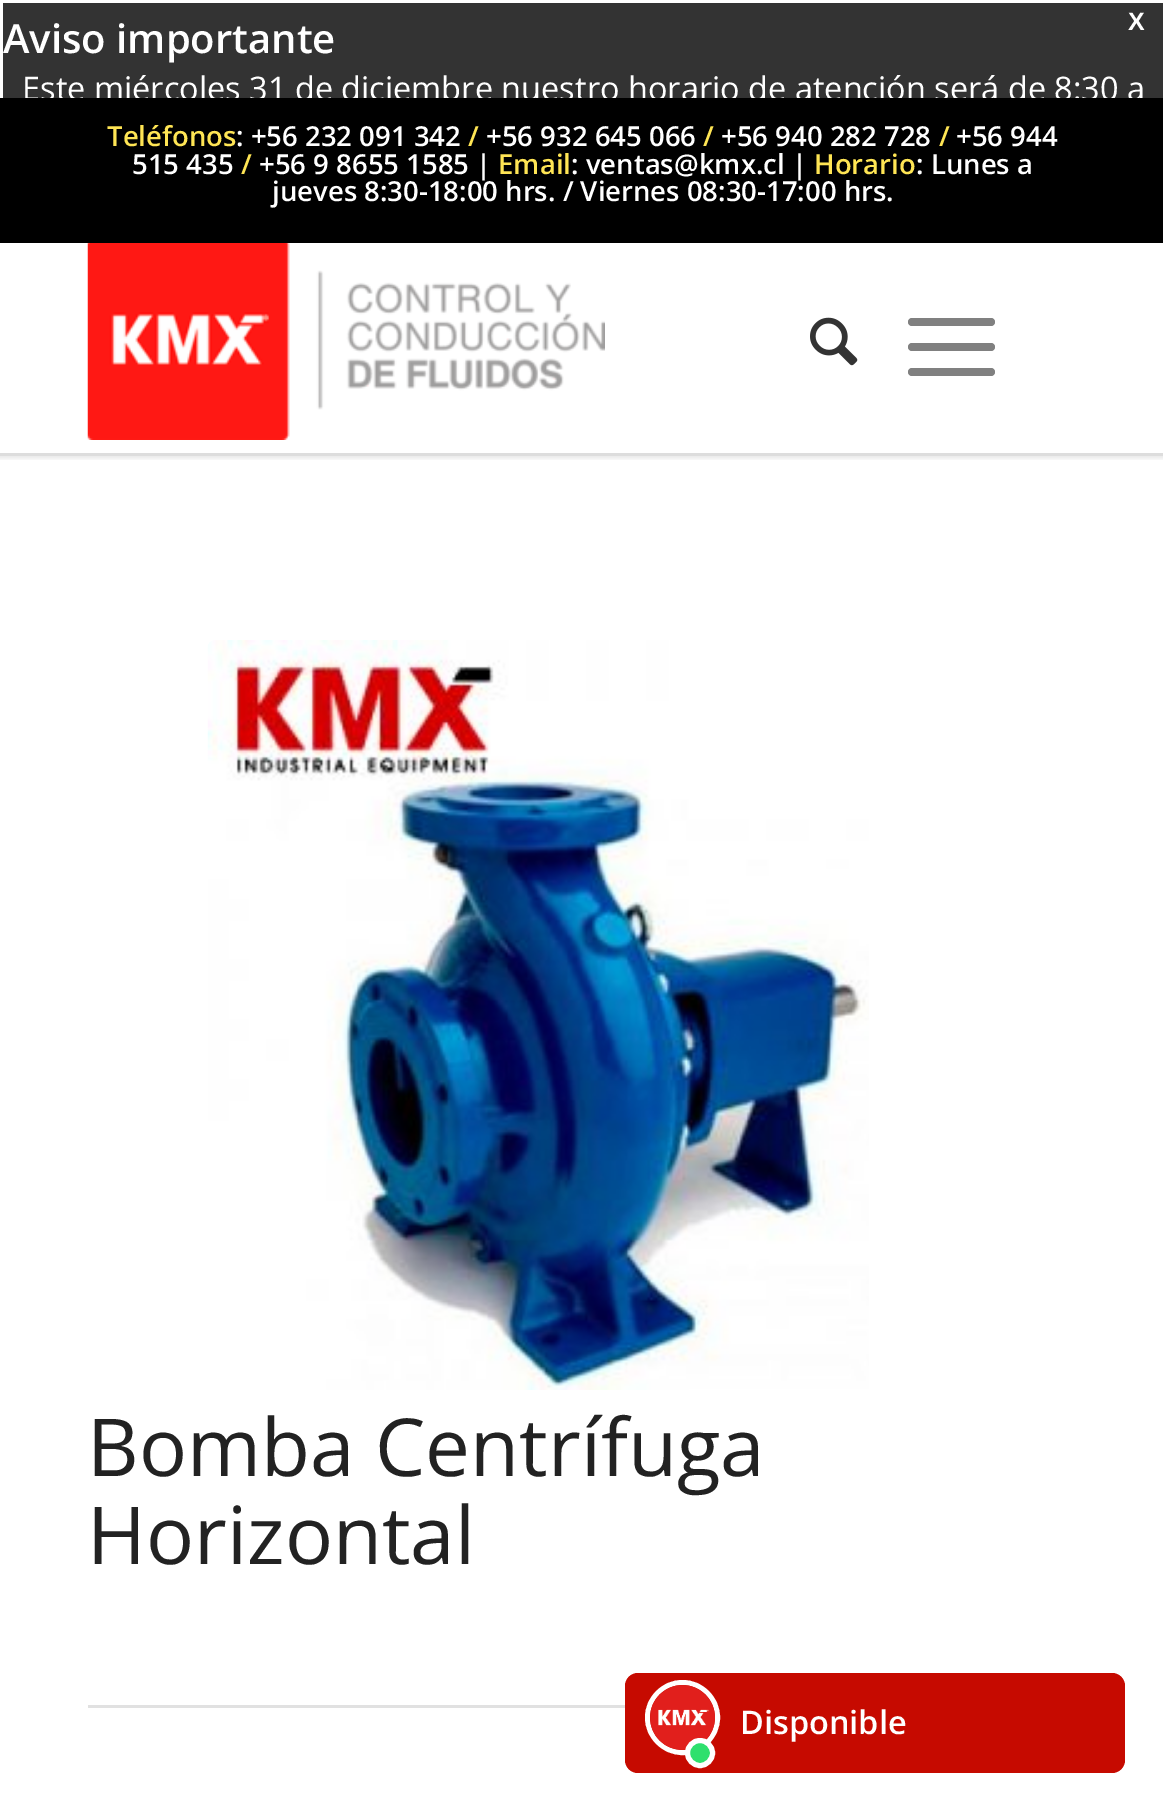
%!PS-Adobe-3.0
%%BoundingBox: 0 0 1163 1812
%%LanguageLevel: 3
%%Pages: 1
%%EndComments
%%BeginProlog
/setalpha { dup .setfillconstantalpha .setstrokeconstantalpha } def
/rrect { 5 dict begin { /r /h /w /y /x } { exch def } forall
  x r add y moveto x w add y 2 copy h add r arct x w add y h add x 1 index r arct
  x y h add x y r arct x y 2 copy exch w add exch r arct closepath end } def
/softshadow { 12 dict begin { /a /b /q /h /w /y /x } { exch def } forall gsave /was 0 def
  9 -2 -9 { dup b mul 4 div /e exch def 1 sub .425 mul 2.718 exch exp 1 add a .99 .min exch div /now exch def
    1 1 now sub 1 was sub div sub setalpha /was now def
    w h .min e 2 mul add 0 gt { x e sub y e sub w e 2 mul add h e 2 mul add
      q e add b .6 mul add w h .min 2 div e add .min 0 .max rrect fill } if } for grestore end } def
/drawimage { 5 dict begin { /h /w /y /x /name } { exch def } forall
  gsave x y translate w h scale
  w h 8 [w 0 0 h 0 0] name (r) file false 3 colorimage grestore end } def
%%EndProlog
%%BeginSetup
<< /PageSize [1163 1812] /PageUsesTransparency true >> setpagedevice
%%EndSetup
%%Page: 1 1
0 .pushpdf14devicefilter
0 1812 translate 1 -1 scale
4 setmiterlimit
0.2 setgray
0 0 1163 1812 rectfill
1 setgray
0 0 1163 3 rectfill
0 243 1163 1569 rectfill
gsave
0 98 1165 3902 rectclip
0 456 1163 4 rectclip
0 setgray
-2 95 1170 363 0 2.5 0.1 softshadow
grestore
0 0 3 98 rectfill
0.867 setgray
0 453 1163 3 rectfill
0 setgray
0 98 1163 145 rectfill
(images/1.raw) 87 243 518 197 drawimage
(images/2.raw) 810 317 48 49 drawimage
0.502 setgray
908 343 87 8 4 rrect fill
908 318 87 8 4 rrect fill
908 368 87 8 4 rrect fill
(images/3.raw) 207 640 662 750 drawimage
0.882 setgray
88 1705 537 3 rectfill
0.776 0.039 0 setrgbcolor
625 1673 500 100 13 rrect fill
1 setgray
5 setlinewidth
newpath 682.5 1717.5 35 0 360 arc closepath stroke
(images/4.raw) 650 1685 65 65 drawimage
0.18 0.878 0.427 setrgbcolor
newpath 700 1753 12.5 0 360 arc closepath gsave fill grestore
1 setgray
stroke
/LiberationSans-Bold [25 0 0 -25 0 0] selectfont
1128 30 moveto (X) show
/OpenSans-SemiBold [40 0 0 -40 0 0] selectfont
3 53 moveto (Aviso importante) show
gsave
0 0 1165 98 rectclip
/OpenSans-Regular [32.5 0 0 -32.5 0 0] selectfont
22 100 moveto (Este miércoles 31 de diciembre nuestro horario de atención será de 8:30 a) show
grestore
/OpenSans-SemiBold [27.5 0 0 -27.5 0 0] selectfont
1 0.898 0.329 setrgbcolor
107 146 moveto (Teléfonos) show
1 setgray
236 146 moveto (: +56 232 091 342) show
1 0.898 0.329 setrgbcolor
468 146 moveto (/) show
1 setgray
486 146 moveto (+56 932 645 066) show
1 0.898 0.329 setrgbcolor
703 146 moveto (/) show
1 setgray
721 146 moveto (+56 940 282 728) show
1 0.898 0.329 setrgbcolor
939 146 moveto (/) show
1 setgray
956 146 moveto (+56 944) show
132 174 moveto (515 435) show
1 0.898 0.329 setrgbcolor
241 174 moveto (/) show
1 setgray
259 174 moveto (+56 9 8655 1585 |) show
1 0.898 0.329 setrgbcolor
498 174 moveto (Email) show
1 setgray
571 174 moveto (: ventas@kmx.cl |) show
1 0.898 0.329 setrgbcolor
814 174 moveto (Horario) show
1 setgray
916 174 moveto (: Lunes a) show
272 201 moveto (jueves 8:30-18:00 hrs. / Viernes 08:30-17:00 hrs.) show
/OpenSans-Regular [80 0 0 -80 0 0] selectfont
0.133 setgray
87 1476 moveto (Bomba Centrífuga) show
87 1564 moveto (Horizontal) show
/OpenSans-SemiBold [32.5 0 0 -32.5 0 0] selectfont
1 setgray
740 1734 moveto (Disponible) show
.poppdf14devicefilter showpage
%%EOF
